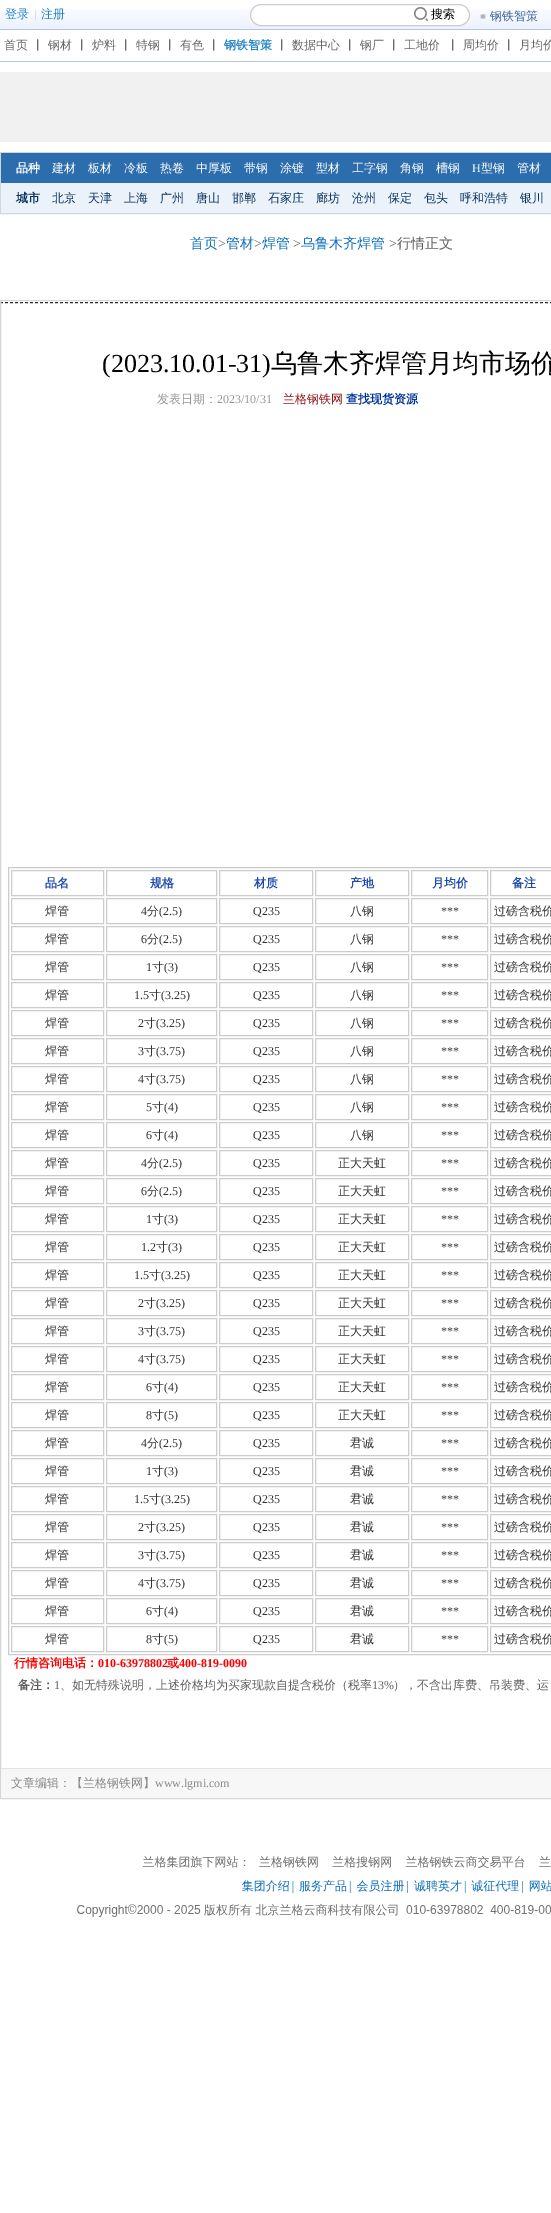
%!PS-Adobe-3.0
%%BoundingBox: 0 0 551 2213
%%LanguageLevel: 3
%%Pages: 1
%%EndComments
%%BeginProlog
/rrect { 5 dict begin { /r /h /w /y /x } { exch def } forall
  x r add y moveto x w add y 2 copy h add r arct x w add y h add x 1 index r arct
  x y h add x y r arct x y 2 copy exch w add exch r arct closepath end } def
/drawimage { 5 dict begin { /h /w /y /x /name } { exch def } forall
  gsave x y translate w h scale
  w h 8 [w 0 0 h 0 0] name (r) file false 3 colorimage grestore end } def
%%EndProlog
%%BeginSetup
<< /PageSize [551 2213] >> setpagedevice
%%EndSetup
%%Page: 1 1
0 2213 translate 1 -1 scale
4 setmiterlimit
1 setgray
0 0 551 2213 rectfill
(images/1.raw) 0 9 551 21 drawimage
250.5 4.5 219 21 10.5 rrect gsave fill grestore
0.8 setgray
stroke
(images/2.raw) 414 7 14 14 drawimage
(images/3.raw) 480 14 6 5 drawimage
0.71 0.773 0.871 setrgbcolor
0 61 551 1 rectfill
0.945 setgray
0 72 551 70 rectfill
0.812 0.843 0.882 setrgbcolor
0.5 152.5 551 61 rectstroke
0.173 0.427 0.678 setrgbcolor
1 153 550 30 rectfill
0.925 0.949 0.976 setrgbcolor
1 183 550 30 rectfill
0.169 setgray
[3 2] 0 setdash
newpath 0 302.5 moveto 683 302.5 lineto stroke
0.839 setgray
[] 0 setdash
0.5 300.5 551 1498 rectstroke
0.8 setgray
8.5 867.5 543 787 rectstroke
11.5 870.5 92 25 rectstroke
106.5 870.5 110 25 rectstroke
219.5 870.5 93 25 rectstroke
315.5 870.5 93 25 rectstroke
411.5 870.5 76 25 rectstroke
490.5 870.5 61 25 rectstroke
11.5 898.5 92 25 rectstroke
106.5 898.5 110 25 rectstroke
219.5 898.5 93 25 rectstroke
315.5 898.5 93 25 rectstroke
411.5 898.5 76 25 rectstroke
490.5 898.5 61 25 rectstroke
11.5 926.5 92 25 rectstroke
106.5 926.5 110 25 rectstroke
219.5 926.5 93 25 rectstroke
315.5 926.5 93 25 rectstroke
411.5 926.5 76 25 rectstroke
490.5 926.5 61 25 rectstroke
11.5 954.5 92 25 rectstroke
106.5 954.5 110 25 rectstroke
219.5 954.5 93 25 rectstroke
315.5 954.5 93 25 rectstroke
411.5 954.5 76 25 rectstroke
490.5 954.5 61 25 rectstroke
11.5 982.5 92 25 rectstroke
106.5 982.5 110 25 rectstroke
219.5 982.5 93 25 rectstroke
315.5 982.5 93 25 rectstroke
411.5 982.5 76 25 rectstroke
490.5 982.5 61 25 rectstroke
11.5 1010.5 92 25 rectstroke
106.5 1010.5 110 25 rectstroke
219.5 1010.5 93 25 rectstroke
315.5 1010.5 93 25 rectstroke
411.5 1010.5 76 25 rectstroke
490.5 1010.5 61 25 rectstroke
11.5 1038.5 92 25 rectstroke
106.5 1038.5 110 25 rectstroke
219.5 1038.5 93 25 rectstroke
315.5 1038.5 93 25 rectstroke
411.5 1038.5 76 25 rectstroke
490.5 1038.5 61 25 rectstroke
11.5 1066.5 92 25 rectstroke
106.5 1066.5 110 25 rectstroke
219.5 1066.5 93 25 rectstroke
315.5 1066.5 93 25 rectstroke
411.5 1066.5 76 25 rectstroke
490.5 1066.5 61 25 rectstroke
11.5 1094.5 92 25 rectstroke
106.5 1094.5 110 25 rectstroke
219.5 1094.5 93 25 rectstroke
315.5 1094.5 93 25 rectstroke
411.5 1094.5 76 25 rectstroke
490.5 1094.5 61 25 rectstroke
11.5 1122.5 92 25 rectstroke
106.5 1122.5 110 25 rectstroke
219.5 1122.5 93 25 rectstroke
315.5 1122.5 93 25 rectstroke
411.5 1122.5 76 25 rectstroke
490.5 1122.5 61 25 rectstroke
11.5 1150.5 92 25 rectstroke
106.5 1150.5 110 25 rectstroke
219.5 1150.5 93 25 rectstroke
315.5 1150.5 93 25 rectstroke
411.5 1150.5 76 25 rectstroke
490.5 1150.5 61 25 rectstroke
11.5 1178.5 92 25 rectstroke
106.5 1178.5 110 25 rectstroke
219.5 1178.5 93 25 rectstroke
315.5 1178.5 93 25 rectstroke
411.5 1178.5 76 25 rectstroke
490.5 1178.5 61 25 rectstroke
11.5 1206.5 92 25 rectstroke
106.5 1206.5 110 25 rectstroke
219.5 1206.5 93 25 rectstroke
315.5 1206.5 93 25 rectstroke
411.5 1206.5 76 25 rectstroke
490.5 1206.5 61 25 rectstroke
11.5 1234.5 92 25 rectstroke
106.5 1234.5 110 25 rectstroke
219.5 1234.5 93 25 rectstroke
315.5 1234.5 93 25 rectstroke
411.5 1234.5 76 25 rectstroke
490.5 1234.5 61 25 rectstroke
11.5 1262.5 92 25 rectstroke
106.5 1262.5 110 25 rectstroke
219.5 1262.5 93 25 rectstroke
315.5 1262.5 93 25 rectstroke
411.5 1262.5 76 25 rectstroke
490.5 1262.5 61 25 rectstroke
11.5 1290.5 92 25 rectstroke
106.5 1290.5 110 25 rectstroke
219.5 1290.5 93 25 rectstroke
315.5 1290.5 93 25 rectstroke
411.5 1290.5 76 25 rectstroke
490.5 1290.5 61 25 rectstroke
11.5 1318.5 92 25 rectstroke
106.5 1318.5 110 25 rectstroke
219.5 1318.5 93 25 rectstroke
315.5 1318.5 93 25 rectstroke
411.5 1318.5 76 25 rectstroke
490.5 1318.5 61 25 rectstroke
11.5 1346.5 92 25 rectstroke
106.5 1346.5 110 25 rectstroke
219.5 1346.5 93 25 rectstroke
315.5 1346.5 93 25 rectstroke
411.5 1346.5 76 25 rectstroke
490.5 1346.5 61 25 rectstroke
11.5 1374.5 92 25 rectstroke
106.5 1374.5 110 25 rectstroke
219.5 1374.5 93 25 rectstroke
315.5 1374.5 93 25 rectstroke
411.5 1374.5 76 25 rectstroke
490.5 1374.5 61 25 rectstroke
11.5 1402.5 92 25 rectstroke
106.5 1402.5 110 25 rectstroke
219.5 1402.5 93 25 rectstroke
315.5 1402.5 93 25 rectstroke
411.5 1402.5 76 25 rectstroke
490.5 1402.5 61 25 rectstroke
11.5 1430.5 92 25 rectstroke
106.5 1430.5 110 25 rectstroke
219.5 1430.5 93 25 rectstroke
315.5 1430.5 93 25 rectstroke
411.5 1430.5 76 25 rectstroke
490.5 1430.5 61 25 rectstroke
11.5 1458.5 92 25 rectstroke
106.5 1458.5 110 25 rectstroke
219.5 1458.5 93 25 rectstroke
315.5 1458.5 93 25 rectstroke
411.5 1458.5 76 25 rectstroke
490.5 1458.5 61 25 rectstroke
11.5 1486.5 92 25 rectstroke
106.5 1486.5 110 25 rectstroke
219.5 1486.5 93 25 rectstroke
315.5 1486.5 93 25 rectstroke
411.5 1486.5 76 25 rectstroke
490.5 1486.5 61 25 rectstroke
11.5 1514.5 92 25 rectstroke
106.5 1514.5 110 25 rectstroke
219.5 1514.5 93 25 rectstroke
315.5 1514.5 93 25 rectstroke
411.5 1514.5 76 25 rectstroke
490.5 1514.5 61 25 rectstroke
11.5 1542.5 92 25 rectstroke
106.5 1542.5 110 25 rectstroke
219.5 1542.5 93 25 rectstroke
315.5 1542.5 93 25 rectstroke
411.5 1542.5 76 25 rectstroke
490.5 1542.5 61 25 rectstroke
11.5 1570.5 92 25 rectstroke
106.5 1570.5 110 25 rectstroke
219.5 1570.5 93 25 rectstroke
315.5 1570.5 93 25 rectstroke
411.5 1570.5 76 25 rectstroke
490.5 1570.5 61 25 rectstroke
11.5 1598.5 92 25 rectstroke
106.5 1598.5 110 25 rectstroke
219.5 1598.5 93 25 rectstroke
315.5 1598.5 93 25 rectstroke
411.5 1598.5 76 25 rectstroke
490.5 1598.5 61 25 rectstroke
11.5 1626.5 92 25 rectstroke
106.5 1626.5 110 25 rectstroke
219.5 1626.5 93 25 rectstroke
315.5 1626.5 93 25 rectstroke
411.5 1626.5 76 25 rectstroke
490.5 1626.5 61 25 rectstroke
0.969 setgray
1 1769 550 29 rectfill
0.89 setgray
1 1768 550 1 rectfill
(images/4.raw) 77 1855 474 62 drawimage
/WenQuanYiZenHei-Medium [12 0 0 -12 0 0] selectfont
0.145 0.529 0.776 setrgbcolor
5 18 moveto (登录) show
/LiberationSerif-Regular [12 0 0 -12 0 0] selectfont
0.792 setgray
34 18 moveto (|) show
/WenQuanYiZenHei-Medium [12 0 0 -12 0 0] selectfont
0.145 0.529 0.776 setrgbcolor
41 18 moveto (注册) show
0 setgray
431 18 moveto (搜索) show
0.243 0.384 0.604 setrgbcolor
490 20 moveto (钢铁智策) show
0.396 setgray
4 49 moveto (首页) show
0.2 setgray
32 49 moveto (丨) show
0.396 setgray
48 49 moveto (钢材) show
0.2 setgray
76 49 moveto (丨) show
0.396 setgray
92 49 moveto (炉料) show
0.2 setgray
120 49 moveto (丨) show
0.396 setgray
136 49 moveto (特钢) show
0.2 setgray
164 49 moveto (丨) show
0.396 setgray
180 49 moveto (有色) show
0.2 setgray
208 49 moveto (丨) show
/WenQuanYiZenHei-Bold [12 0 0 -12 0 0] selectfont
0.145 0.529 0.776 setrgbcolor
224 49 moveto (钢铁智策) show
/WenQuanYiZenHei-Medium [12 0 0 -12 0 0] selectfont
0.2 setgray
276 49 moveto (丨) show
0.396 setgray
292 49 moveto (数据中心) show
0.2 setgray
344 49 moveto (丨) show
0.396 setgray
360 49 moveto (钢厂) show
0.2 setgray
388 49 moveto (丨) show
0.396 setgray
404 49 moveto (工地价) show
0.2 setgray
447 49 moveto (丨) show
0.396 setgray
463 49 moveto (周均价) show
0.2 setgray
503 49 moveto (丨) show
0.396 setgray
519 49 moveto (月均价) show
/WenQuanYiZenHei-Bold [12 0 0 -12 0 0] selectfont
1 setgray
16 172 moveto (品种) show
/WenQuanYiZenHei-Medium [12 0 0 -12 0 0] selectfont
52 172 moveto (建材) show
88 172 moveto (板材) show
124 172 moveto (冷板) show
160 172 moveto (热卷) show
196 172 moveto (中厚板) show
244 172 moveto (带钢) show
280 172 moveto (涂镀) show
316 172 moveto (型材) show
352 172 moveto (工字钢) show
400 172 moveto (角钢) show
436 172 moveto (槽钢) show
/LiberationSerif-Regular [12 0 0 -12 0 0] selectfont
472 172 moveto (H) show
/WenQuanYiZenHei-Medium [12 0 0 -12 0 0] selectfont
481 172 moveto (型钢) show
517 172 moveto (管材) show
/WenQuanYiZenHei-Bold [12 0 0 -12 0 0] selectfont
0.039 0.208 0.388 setrgbcolor
16 202 moveto (城市) show
/WenQuanYiZenHei-Medium [12 0 0 -12 0 0] selectfont
52 202 moveto (北京) show
88 202 moveto (天津) show
124 202 moveto (上海) show
160 202 moveto (广州) show
196 202 moveto (唐山) show
232 202 moveto (邯郸) show
268 202 moveto (石家庄) show
316 202 moveto (廊坊) show
352 202 moveto (沧州) show
388 202 moveto (保定) show
424 202 moveto (包头) show
460 202 moveto (呼和浩特) show
520 202 moveto (银川) show
/WenQuanYiZenHei-Medium [14 0 0 -14 0 0] selectfont
0.051 0.427 0.729 setrgbcolor
190 248 moveto (首页) show
/LiberationSerif-Regular [14 0 0 -14 0 0] selectfont
0.369 setgray
218 248 moveto (>) show
/WenQuanYiZenHei-Medium [14 0 0 -14 0 0] selectfont
0.051 0.427 0.729 setrgbcolor
226 248 moveto (管材) show
/LiberationSerif-Regular [14 0 0 -14 0 0] selectfont
0.369 setgray
254 248 moveto (>) show
/WenQuanYiZenHei-Medium [14 0 0 -14 0 0] selectfont
0.051 0.427 0.729 setrgbcolor
262 248 moveto (焊管) show
/LiberationSerif-Regular [14 0 0 -14 0 0] selectfont
0.369 setgray
293 248 moveto (>) show
/WenQuanYiZenHei-Medium [14 0 0 -14 0 0] selectfont
0.051 0.427 0.729 setrgbcolor
301 248 moveto (乌鲁木齐焊管) show
/LiberationSerif-Regular [14 0 0 -14 0 0] selectfont
0.369 setgray
389 248 moveto (>) show
/WenQuanYiZenHei-Medium [14 0 0 -14 0 0] selectfont
397 248 moveto (行情正文) show
/LiberationSerif-Regular [26 0 0 -26 0 0] selectfont
0 setgray
102 372 moveto (\(2023.10.01-31\)) show
/WenQuanYiZenHei-Medium [26 0 0 -26 0 0] selectfont
271 372 moveto (乌鲁木齐焊管月均市场价) show
/WenQuanYiZenHei-Medium [12 0 0 -12 0 0] selectfont
0.588 setgray
157 403 moveto (发表日期：) show
/LiberationSerif-Regular [12 0 0 -12 0 0] selectfont
217 403 moveto (2023/10/31) show
/WenQuanYiZenHei-Medium [12 0 0 -12 0 0] selectfont
0.58 0.082 0.094 setrgbcolor
283 403 moveto (兰格钢铁网) show
/WenQuanYiZenHei-Bold [12 0 0 -12 0 0] selectfont
0 0.2 0.6 setrgbcolor
346 403 moveto (查找现货资源) show
0.125 0.298 0.69 setrgbcolor
45 887 moveto (品名) show
150 887 moveto (规格) show
254 887 moveto (材质) show
350 887 moveto (产地) show
432 887 moveto (月均价) show
512 887 moveto (备注) show
/WenQuanYiZenHei-Medium [12 0 0 -12 0 0] selectfont
0.2 setgray
45 915 moveto (焊管) show
/LiberationSerif-Regular [12 0 0 -12 0 0] selectfont
141 915 moveto (4) show
/WenQuanYiZenHei-Medium [12 0 0 -12 0 0] selectfont
147 915 moveto (分) show
/LiberationSerif-Regular [12 0 0 -12 0 0] selectfont
159 915 moveto (\(2.5\)) show
253 915 moveto (Q235) show
/WenQuanYiZenHei-Medium [12 0 0 -12 0 0] selectfont
350 915 moveto (八钢) show
/LiberationSerif-Regular [12 0 0 -12 0 0] selectfont
441 915 moveto (***) show
/WenQuanYiZenHei-Medium [12 0 0 -12 0 0] selectfont
494 915 moveto (过磅含税价) show
45 943 moveto (焊管) show
/LiberationSerif-Regular [12 0 0 -12 0 0] selectfont
141 943 moveto (6) show
/WenQuanYiZenHei-Medium [12 0 0 -12 0 0] selectfont
147 943 moveto (分) show
/LiberationSerif-Regular [12 0 0 -12 0 0] selectfont
159 943 moveto (\(2.5\)) show
253 943 moveto (Q235) show
/WenQuanYiZenHei-Medium [12 0 0 -12 0 0] selectfont
350 943 moveto (八钢) show
/LiberationSerif-Regular [12 0 0 -12 0 0] selectfont
441 943 moveto (***) show
/WenQuanYiZenHei-Medium [12 0 0 -12 0 0] selectfont
494 943 moveto (过磅含税价) show
45 971 moveto (焊管) show
/LiberationSerif-Regular [12 0 0 -12 0 0] selectfont
146 971 moveto (1) show
/WenQuanYiZenHei-Medium [12 0 0 -12 0 0] selectfont
152 971 moveto (寸) show
/LiberationSerif-Regular [12 0 0 -12 0 0] selectfont
164 971 moveto (\(3\)) show
253 971 moveto (Q235) show
/WenQuanYiZenHei-Medium [12 0 0 -12 0 0] selectfont
350 971 moveto (八钢) show
/LiberationSerif-Regular [12 0 0 -12 0 0] selectfont
441 971 moveto (***) show
/WenQuanYiZenHei-Medium [12 0 0 -12 0 0] selectfont
494 971 moveto (过磅含税价) show
45 999 moveto (焊管) show
/LiberationSerif-Regular [12 0 0 -12 0 0] selectfont
134 999 moveto (1.5) show
/WenQuanYiZenHei-Medium [12 0 0 -12 0 0] selectfont
149 999 moveto (寸) show
/LiberationSerif-Regular [12 0 0 -12 0 0] selectfont
161 999 moveto (\(3.25\)) show
253 999 moveto (Q235) show
/WenQuanYiZenHei-Medium [12 0 0 -12 0 0] selectfont
350 999 moveto (八钢) show
/LiberationSerif-Regular [12 0 0 -12 0 0] selectfont
441 999 moveto (***) show
/WenQuanYiZenHei-Medium [12 0 0 -12 0 0] selectfont
494 999 moveto (过磅含税价) show
45 1027 moveto (焊管) show
/LiberationSerif-Regular [12 0 0 -12 0 0] selectfont
138 1027 moveto (2) show
/WenQuanYiZenHei-Medium [12 0 0 -12 0 0] selectfont
144 1027 moveto (寸) show
/LiberationSerif-Regular [12 0 0 -12 0 0] selectfont
156 1027 moveto (\(3.25\)) show
253 1027 moveto (Q235) show
/WenQuanYiZenHei-Medium [12 0 0 -12 0 0] selectfont
350 1027 moveto (八钢) show
/LiberationSerif-Regular [12 0 0 -12 0 0] selectfont
441 1027 moveto (***) show
/WenQuanYiZenHei-Medium [12 0 0 -12 0 0] selectfont
494 1027 moveto (过磅含税价) show
45 1055 moveto (焊管) show
/LiberationSerif-Regular [12 0 0 -12 0 0] selectfont
138 1055 moveto (3) show
/WenQuanYiZenHei-Medium [12 0 0 -12 0 0] selectfont
144 1055 moveto (寸) show
/LiberationSerif-Regular [12 0 0 -12 0 0] selectfont
156 1055 moveto (\(3.75\)) show
253 1055 moveto (Q235) show
/WenQuanYiZenHei-Medium [12 0 0 -12 0 0] selectfont
350 1055 moveto (八钢) show
/LiberationSerif-Regular [12 0 0 -12 0 0] selectfont
441 1055 moveto (***) show
/WenQuanYiZenHei-Medium [12 0 0 -12 0 0] selectfont
494 1055 moveto (过磅含税价) show
45 1083 moveto (焊管) show
/LiberationSerif-Regular [12 0 0 -12 0 0] selectfont
138 1083 moveto (4) show
/WenQuanYiZenHei-Medium [12 0 0 -12 0 0] selectfont
144 1083 moveto (寸) show
/LiberationSerif-Regular [12 0 0 -12 0 0] selectfont
156 1083 moveto (\(3.75\)) show
253 1083 moveto (Q235) show
/WenQuanYiZenHei-Medium [12 0 0 -12 0 0] selectfont
350 1083 moveto (八钢) show
/LiberationSerif-Regular [12 0 0 -12 0 0] selectfont
441 1083 moveto (***) show
/WenQuanYiZenHei-Medium [12 0 0 -12 0 0] selectfont
494 1083 moveto (过磅含税价) show
45 1111 moveto (焊管) show
/LiberationSerif-Regular [12 0 0 -12 0 0] selectfont
146 1111 moveto (5) show
/WenQuanYiZenHei-Medium [12 0 0 -12 0 0] selectfont
152 1111 moveto (寸) show
/LiberationSerif-Regular [12 0 0 -12 0 0] selectfont
164 1111 moveto (\(4\)) show
253 1111 moveto (Q235) show
/WenQuanYiZenHei-Medium [12 0 0 -12 0 0] selectfont
350 1111 moveto (八钢) show
/LiberationSerif-Regular [12 0 0 -12 0 0] selectfont
441 1111 moveto (***) show
/WenQuanYiZenHei-Medium [12 0 0 -12 0 0] selectfont
494 1111 moveto (过磅含税价) show
45 1139 moveto (焊管) show
/LiberationSerif-Regular [12 0 0 -12 0 0] selectfont
146 1139 moveto (6) show
/WenQuanYiZenHei-Medium [12 0 0 -12 0 0] selectfont
152 1139 moveto (寸) show
/LiberationSerif-Regular [12 0 0 -12 0 0] selectfont
164 1139 moveto (\(4\)) show
253 1139 moveto (Q235) show
/WenQuanYiZenHei-Medium [12 0 0 -12 0 0] selectfont
350 1139 moveto (八钢) show
/LiberationSerif-Regular [12 0 0 -12 0 0] selectfont
441 1139 moveto (***) show
/WenQuanYiZenHei-Medium [12 0 0 -12 0 0] selectfont
494 1139 moveto (过磅含税价) show
45 1167 moveto (焊管) show
/LiberationSerif-Regular [12 0 0 -12 0 0] selectfont
141 1167 moveto (4) show
/WenQuanYiZenHei-Medium [12 0 0 -12 0 0] selectfont
147 1167 moveto (分) show
/LiberationSerif-Regular [12 0 0 -12 0 0] selectfont
159 1167 moveto (\(2.5\)) show
253 1167 moveto (Q235) show
/WenQuanYiZenHei-Medium [12 0 0 -12 0 0] selectfont
338 1167 moveto (正大天虹) show
/LiberationSerif-Regular [12 0 0 -12 0 0] selectfont
441 1167 moveto (***) show
/WenQuanYiZenHei-Medium [12 0 0 -12 0 0] selectfont
494 1167 moveto (过磅含税价) show
45 1195 moveto (焊管) show
/LiberationSerif-Regular [12 0 0 -12 0 0] selectfont
141 1195 moveto (6) show
/WenQuanYiZenHei-Medium [12 0 0 -12 0 0] selectfont
147 1195 moveto (分) show
/LiberationSerif-Regular [12 0 0 -12 0 0] selectfont
159 1195 moveto (\(2.5\)) show
253 1195 moveto (Q235) show
/WenQuanYiZenHei-Medium [12 0 0 -12 0 0] selectfont
338 1195 moveto (正大天虹) show
/LiberationSerif-Regular [12 0 0 -12 0 0] selectfont
441 1195 moveto (***) show
/WenQuanYiZenHei-Medium [12 0 0 -12 0 0] selectfont
494 1195 moveto (过磅含税价) show
45 1223 moveto (焊管) show
/LiberationSerif-Regular [12 0 0 -12 0 0] selectfont
146 1223 moveto (1) show
/WenQuanYiZenHei-Medium [12 0 0 -12 0 0] selectfont
152 1223 moveto (寸) show
/LiberationSerif-Regular [12 0 0 -12 0 0] selectfont
164 1223 moveto (\(3\)) show
253 1223 moveto (Q235) show
/WenQuanYiZenHei-Medium [12 0 0 -12 0 0] selectfont
338 1223 moveto (正大天虹) show
/LiberationSerif-Regular [12 0 0 -12 0 0] selectfont
441 1223 moveto (***) show
/WenQuanYiZenHei-Medium [12 0 0 -12 0 0] selectfont
494 1223 moveto (过磅含税价) show
45 1251 moveto (焊管) show
/LiberationSerif-Regular [12 0 0 -12 0 0] selectfont
141 1251 moveto (1.2) show
/WenQuanYiZenHei-Medium [12 0 0 -12 0 0] selectfont
156 1251 moveto (寸) show
/LiberationSerif-Regular [12 0 0 -12 0 0] selectfont
168 1251 moveto (\(3\)) show
253 1251 moveto (Q235) show
/WenQuanYiZenHei-Medium [12 0 0 -12 0 0] selectfont
338 1251 moveto (正大天虹) show
/LiberationSerif-Regular [12 0 0 -12 0 0] selectfont
441 1251 moveto (***) show
/WenQuanYiZenHei-Medium [12 0 0 -12 0 0] selectfont
494 1251 moveto (过磅含税价) show
45 1279 moveto (焊管) show
/LiberationSerif-Regular [12 0 0 -12 0 0] selectfont
134 1279 moveto (1.5) show
/WenQuanYiZenHei-Medium [12 0 0 -12 0 0] selectfont
149 1279 moveto (寸) show
/LiberationSerif-Regular [12 0 0 -12 0 0] selectfont
161 1279 moveto (\(3.25\)) show
253 1279 moveto (Q235) show
/WenQuanYiZenHei-Medium [12 0 0 -12 0 0] selectfont
338 1279 moveto (正大天虹) show
/LiberationSerif-Regular [12 0 0 -12 0 0] selectfont
441 1279 moveto (***) show
/WenQuanYiZenHei-Medium [12 0 0 -12 0 0] selectfont
494 1279 moveto (过磅含税价) show
45 1307 moveto (焊管) show
/LiberationSerif-Regular [12 0 0 -12 0 0] selectfont
138 1307 moveto (2) show
/WenQuanYiZenHei-Medium [12 0 0 -12 0 0] selectfont
144 1307 moveto (寸) show
/LiberationSerif-Regular [12 0 0 -12 0 0] selectfont
156 1307 moveto (\(3.25\)) show
253 1307 moveto (Q235) show
/WenQuanYiZenHei-Medium [12 0 0 -12 0 0] selectfont
338 1307 moveto (正大天虹) show
/LiberationSerif-Regular [12 0 0 -12 0 0] selectfont
441 1307 moveto (***) show
/WenQuanYiZenHei-Medium [12 0 0 -12 0 0] selectfont
494 1307 moveto (过磅含税价) show
45 1335 moveto (焊管) show
/LiberationSerif-Regular [12 0 0 -12 0 0] selectfont
138 1335 moveto (3) show
/WenQuanYiZenHei-Medium [12 0 0 -12 0 0] selectfont
144 1335 moveto (寸) show
/LiberationSerif-Regular [12 0 0 -12 0 0] selectfont
156 1335 moveto (\(3.75\)) show
253 1335 moveto (Q235) show
/WenQuanYiZenHei-Medium [12 0 0 -12 0 0] selectfont
338 1335 moveto (正大天虹) show
/LiberationSerif-Regular [12 0 0 -12 0 0] selectfont
441 1335 moveto (***) show
/WenQuanYiZenHei-Medium [12 0 0 -12 0 0] selectfont
494 1335 moveto (过磅含税价) show
45 1363 moveto (焊管) show
/LiberationSerif-Regular [12 0 0 -12 0 0] selectfont
138 1363 moveto (4) show
/WenQuanYiZenHei-Medium [12 0 0 -12 0 0] selectfont
144 1363 moveto (寸) show
/LiberationSerif-Regular [12 0 0 -12 0 0] selectfont
156 1363 moveto (\(3.75\)) show
253 1363 moveto (Q235) show
/WenQuanYiZenHei-Medium [12 0 0 -12 0 0] selectfont
338 1363 moveto (正大天虹) show
/LiberationSerif-Regular [12 0 0 -12 0 0] selectfont
441 1363 moveto (***) show
/WenQuanYiZenHei-Medium [12 0 0 -12 0 0] selectfont
494 1363 moveto (过磅含税价) show
45 1391 moveto (焊管) show
/LiberationSerif-Regular [12 0 0 -12 0 0] selectfont
146 1391 moveto (6) show
/WenQuanYiZenHei-Medium [12 0 0 -12 0 0] selectfont
152 1391 moveto (寸) show
/LiberationSerif-Regular [12 0 0 -12 0 0] selectfont
164 1391 moveto (\(4\)) show
253 1391 moveto (Q235) show
/WenQuanYiZenHei-Medium [12 0 0 -12 0 0] selectfont
338 1391 moveto (正大天虹) show
/LiberationSerif-Regular [12 0 0 -12 0 0] selectfont
441 1391 moveto (***) show
/WenQuanYiZenHei-Medium [12 0 0 -12 0 0] selectfont
494 1391 moveto (过磅含税价) show
45 1419 moveto (焊管) show
/LiberationSerif-Regular [12 0 0 -12 0 0] selectfont
146 1419 moveto (8) show
/WenQuanYiZenHei-Medium [12 0 0 -12 0 0] selectfont
152 1419 moveto (寸) show
/LiberationSerif-Regular [12 0 0 -12 0 0] selectfont
164 1419 moveto (\(5\)) show
253 1419 moveto (Q235) show
/WenQuanYiZenHei-Medium [12 0 0 -12 0 0] selectfont
338 1419 moveto (正大天虹) show
/LiberationSerif-Regular [12 0 0 -12 0 0] selectfont
441 1419 moveto (***) show
/WenQuanYiZenHei-Medium [12 0 0 -12 0 0] selectfont
494 1419 moveto (过磅含税价) show
45 1447 moveto (焊管) show
/LiberationSerif-Regular [12 0 0 -12 0 0] selectfont
141 1447 moveto (4) show
/WenQuanYiZenHei-Medium [12 0 0 -12 0 0] selectfont
147 1447 moveto (分) show
/LiberationSerif-Regular [12 0 0 -12 0 0] selectfont
159 1447 moveto (\(2.5\)) show
253 1447 moveto (Q235) show
/WenQuanYiZenHei-Medium [12 0 0 -12 0 0] selectfont
350 1447 moveto (君诚) show
/LiberationSerif-Regular [12 0 0 -12 0 0] selectfont
441 1447 moveto (***) show
/WenQuanYiZenHei-Medium [12 0 0 -12 0 0] selectfont
494 1447 moveto (过磅含税价) show
45 1475 moveto (焊管) show
/LiberationSerif-Regular [12 0 0 -12 0 0] selectfont
146 1475 moveto (1) show
/WenQuanYiZenHei-Medium [12 0 0 -12 0 0] selectfont
152 1475 moveto (寸) show
/LiberationSerif-Regular [12 0 0 -12 0 0] selectfont
164 1475 moveto (\(3\)) show
253 1475 moveto (Q235) show
/WenQuanYiZenHei-Medium [12 0 0 -12 0 0] selectfont
350 1475 moveto (君诚) show
/LiberationSerif-Regular [12 0 0 -12 0 0] selectfont
441 1475 moveto (***) show
/WenQuanYiZenHei-Medium [12 0 0 -12 0 0] selectfont
494 1475 moveto (过磅含税价) show
45 1503 moveto (焊管) show
/LiberationSerif-Regular [12 0 0 -12 0 0] selectfont
134 1503 moveto (1.5) show
/WenQuanYiZenHei-Medium [12 0 0 -12 0 0] selectfont
149 1503 moveto (寸) show
/LiberationSerif-Regular [12 0 0 -12 0 0] selectfont
161 1503 moveto (\(3.25\)) show
253 1503 moveto (Q235) show
/WenQuanYiZenHei-Medium [12 0 0 -12 0 0] selectfont
350 1503 moveto (君诚) show
/LiberationSerif-Regular [12 0 0 -12 0 0] selectfont
441 1503 moveto (***) show
/WenQuanYiZenHei-Medium [12 0 0 -12 0 0] selectfont
494 1503 moveto (过磅含税价) show
45 1531 moveto (焊管) show
/LiberationSerif-Regular [12 0 0 -12 0 0] selectfont
138 1531 moveto (2) show
/WenQuanYiZenHei-Medium [12 0 0 -12 0 0] selectfont
144 1531 moveto (寸) show
/LiberationSerif-Regular [12 0 0 -12 0 0] selectfont
156 1531 moveto (\(3.25\)) show
253 1531 moveto (Q235) show
/WenQuanYiZenHei-Medium [12 0 0 -12 0 0] selectfont
350 1531 moveto (君诚) show
/LiberationSerif-Regular [12 0 0 -12 0 0] selectfont
441 1531 moveto (***) show
/WenQuanYiZenHei-Medium [12 0 0 -12 0 0] selectfont
494 1531 moveto (过磅含税价) show
45 1559 moveto (焊管) show
/LiberationSerif-Regular [12 0 0 -12 0 0] selectfont
138 1559 moveto (3) show
/WenQuanYiZenHei-Medium [12 0 0 -12 0 0] selectfont
144 1559 moveto (寸) show
/LiberationSerif-Regular [12 0 0 -12 0 0] selectfont
156 1559 moveto (\(3.75\)) show
253 1559 moveto (Q235) show
/WenQuanYiZenHei-Medium [12 0 0 -12 0 0] selectfont
350 1559 moveto (君诚) show
/LiberationSerif-Regular [12 0 0 -12 0 0] selectfont
441 1559 moveto (***) show
/WenQuanYiZenHei-Medium [12 0 0 -12 0 0] selectfont
494 1559 moveto (过磅含税价) show
45 1587 moveto (焊管) show
/LiberationSerif-Regular [12 0 0 -12 0 0] selectfont
138 1587 moveto (4) show
/WenQuanYiZenHei-Medium [12 0 0 -12 0 0] selectfont
144 1587 moveto (寸) show
/LiberationSerif-Regular [12 0 0 -12 0 0] selectfont
156 1587 moveto (\(3.75\)) show
253 1587 moveto (Q235) show
/WenQuanYiZenHei-Medium [12 0 0 -12 0 0] selectfont
350 1587 moveto (君诚) show
/LiberationSerif-Regular [12 0 0 -12 0 0] selectfont
441 1587 moveto (***) show
/WenQuanYiZenHei-Medium [12 0 0 -12 0 0] selectfont
494 1587 moveto (过磅含税价) show
45 1615 moveto (焊管) show
/LiberationSerif-Regular [12 0 0 -12 0 0] selectfont
146 1615 moveto (6) show
/WenQuanYiZenHei-Medium [12 0 0 -12 0 0] selectfont
152 1615 moveto (寸) show
/LiberationSerif-Regular [12 0 0 -12 0 0] selectfont
164 1615 moveto (\(4\)) show
253 1615 moveto (Q235) show
/WenQuanYiZenHei-Medium [12 0 0 -12 0 0] selectfont
350 1615 moveto (君诚) show
/LiberationSerif-Regular [12 0 0 -12 0 0] selectfont
441 1615 moveto (***) show
/WenQuanYiZenHei-Medium [12 0 0 -12 0 0] selectfont
494 1615 moveto (过磅含税价) show
45 1643 moveto (焊管) show
/LiberationSerif-Regular [12 0 0 -12 0 0] selectfont
146 1643 moveto (8) show
/WenQuanYiZenHei-Medium [12 0 0 -12 0 0] selectfont
152 1643 moveto (寸) show
/LiberationSerif-Regular [12 0 0 -12 0 0] selectfont
164 1643 moveto (\(5\)) show
253 1643 moveto (Q235) show
/WenQuanYiZenHei-Medium [12 0 0 -12 0 0] selectfont
350 1643 moveto (君诚) show
/LiberationSerif-Regular [12 0 0 -12 0 0] selectfont
441 1643 moveto (***) show
/WenQuanYiZenHei-Medium [12 0 0 -12 0 0] selectfont
494 1643 moveto (过磅含税价) show
/WenQuanYiZenHei-Bold [12 0 0 -12 0 0] selectfont
1 0 0 setrgbcolor
14 1667 moveto (行情咨询电话：) show
/LiberationSerif-Bold [12 0 0 -12 0 0] selectfont
98 1667 moveto (010-63978802) show
/WenQuanYiZenHei-Bold [12 0 0 -12 0 0] selectfont
167 1667 moveto (或) show
/LiberationSerif-Bold [12 0 0 -12 0 0] selectfont
179 1667 moveto (400-819-0090) show
/WenQuanYiZenHei-Bold [12 0 0 -12 0 0] selectfont
0.369 setgray
18 1689 moveto (备注：) show
/LiberationSerif-Regular [12 0 0 -12 0 0] selectfont
54 1689 moveto (1) show
/WenQuanYiZenHei-Medium [12 0 0 -12 0 0] selectfont
60 1689 moveto (、如无特殊说明，上述价格均为买家现款自提含税价（税率) show
/LiberationSerif-Regular [12 0 0 -12 0 0] selectfont
372 1689 moveto (13%) show
/WenQuanYiZenHei-Medium [12 0 0 -12 0 0] selectfont
393 1689 moveto (），不含出库费、吊装费、运) show
0.537 setgray
11 1787 moveto (文章编辑：【兰格钢铁网】) show
/LiberationSerif-Regular [12 0 0 -12 0 0] selectfont
155 1787 moveto (www.lgmi.com) show
showpage
%%EOF
